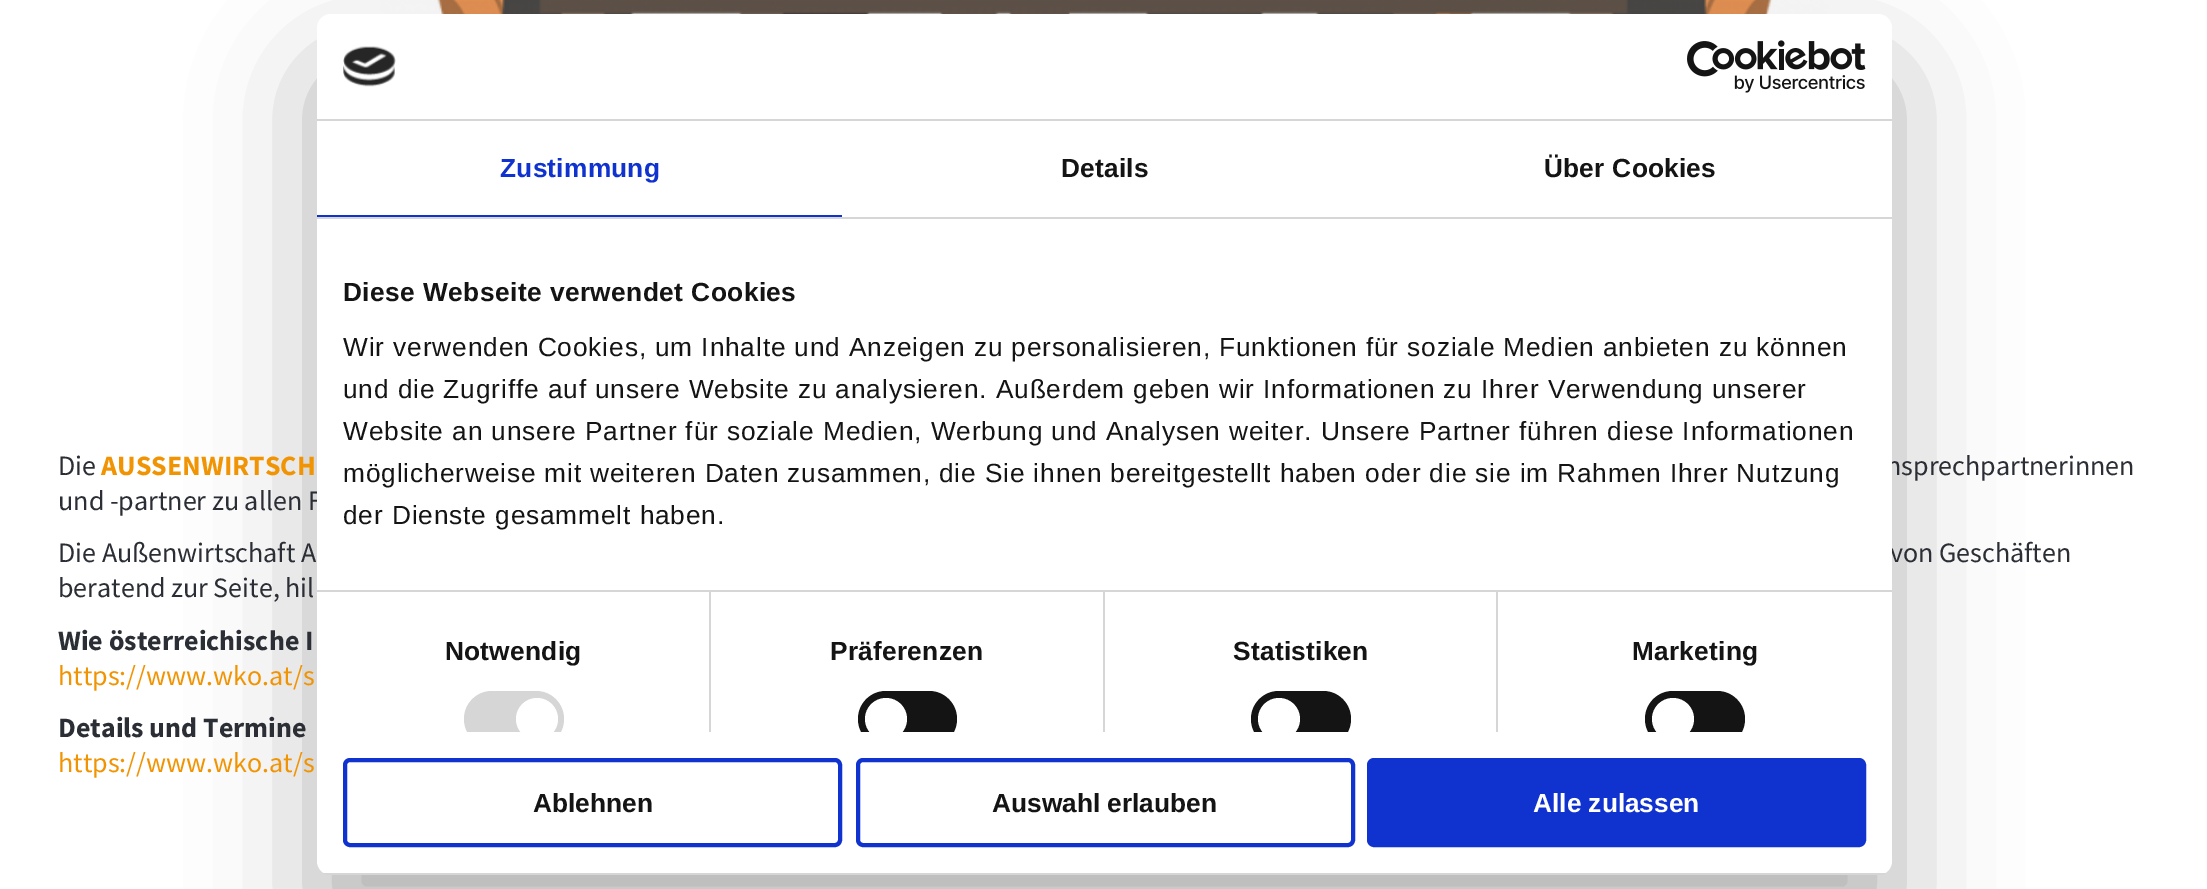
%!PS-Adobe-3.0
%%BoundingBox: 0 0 2207 889
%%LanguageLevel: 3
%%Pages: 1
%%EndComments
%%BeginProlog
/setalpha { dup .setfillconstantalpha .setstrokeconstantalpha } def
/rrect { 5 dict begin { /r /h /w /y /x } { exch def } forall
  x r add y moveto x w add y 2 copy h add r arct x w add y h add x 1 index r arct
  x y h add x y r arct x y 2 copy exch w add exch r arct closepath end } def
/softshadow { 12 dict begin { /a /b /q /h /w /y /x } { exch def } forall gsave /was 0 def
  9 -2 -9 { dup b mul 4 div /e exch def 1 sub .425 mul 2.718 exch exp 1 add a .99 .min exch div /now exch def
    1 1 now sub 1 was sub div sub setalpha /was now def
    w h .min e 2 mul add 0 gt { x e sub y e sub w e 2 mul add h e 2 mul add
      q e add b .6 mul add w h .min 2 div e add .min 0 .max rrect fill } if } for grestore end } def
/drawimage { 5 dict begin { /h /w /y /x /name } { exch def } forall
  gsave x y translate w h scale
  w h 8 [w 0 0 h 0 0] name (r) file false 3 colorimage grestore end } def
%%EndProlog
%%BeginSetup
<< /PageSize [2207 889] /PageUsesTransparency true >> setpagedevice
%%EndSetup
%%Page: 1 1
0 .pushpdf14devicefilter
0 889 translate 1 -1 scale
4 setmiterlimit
1 setgray
0 0 2207 889 rectfill
(images/3.raw) 380 0 1449 14 drawimage
0 setgray
317 70 1575 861 14 59.5 0.3 softshadow
/SourceSansPro-Regular [28 0 0 -28 0 0] selectfont
0.169 0.18 0.204 setrgbcolor
58 475 moveto (Die) show
/SourceSansPro-Bold [28 0 0 -28 0 0] selectfont
0.945 0.58 0.012 setrgbcolor
101 475 moveto (AUSSENWIRTSCH) show
/SourceSansPro-Regular [28 0 0 -28 0 0] selectfont
0.169 0.18 0.204 setrgbcolor
1886 475 moveto (nsprechpartnerinnen) show
58 510 moveto (und -partner zu allen F) show
58 562 moveto (Die Außenwirtschaft A) show
1890 562 moveto (von Geschäften) show
1 setgray
317 14 1575 861 14 rrect fill
0.063 0.196 0.812 setrgbcolor
1369 760 495 85 5 rrect gsave fill grestore
4 setlinewidth
stroke
/LiberationSans-Bold [26.25 0 0 -26.25 0 0] selectfont
1 setgray
1533 812 moveto (Alle zulassen) show
0.063 0.196 0.812 setrgbcolor
858 760 495 85 5 rrect stroke
0.078 setgray
992 812 moveto (Auswahl erlauben) show
0.063 0.196 0.812 setrgbcolor
345 760 495 85 5 rrect stroke
0.078 setgray
533 812 moveto (Ablehnen) show
gsave
317 14 1575 861 14 rrect clip newpath
0.839 setgray
317 873 1575 2 rectfill
grestore
gsave
317 219 1575 513 rectclip
1645 691 100 56 28 rrect fill
1 setgray
newpath 1673 719 21 0 360 arc closepath fill
0.078 setgray
1251 691 100 56 28 rrect fill
1 setgray
newpath 1279 719 21 0 360 arc closepath fill
0.078 setgray
858 691 99 56 28 rrect fill
1 setgray
newpath 886 719 21 0 360 arc closepath fill
0.839 setgray
464 691 100 56 28 rrect fill
1 setgray
newpath 537 719 21 0 360 arc closepath fill
grestore
/LiberationSans-Regular [26.25 0 0 -26.25 0 0] selectfont
343 524 moveto 0.88 0 (der Dienste gesammelt haben.) ashow
343 482 moveto 0.88 0 (möglicherweise mit weiteren Daten zusammen, die Sie ihnen bereitgestellt haben oder die sie im Rahmen Ihrer Nutzung) ashow
343 440 moveto 0.88 0 (Website an unsere Partner für soziale Medien, Werbung und Analysen weiter. Unsere Partner führen diese Informationen) ashow
343 398 moveto 0.88 0 (und die Zugriffe auf unsere Website zu analysieren. Außerdem geben wir Informationen zu Ihrer Verwendung unserer) ashow
343 356 moveto 0.88 0 (Wir verwenden Cookies, um Inhalte und Anzeigen zu personalisieren, Funktionen für soziale Medien anbieten zu können) ashow
/LiberationSans-Bold [26.25 0 0 -26.25 0 0] selectfont
343 301 moveto 0.45 0 (Diese Webseite verwendet Cookies) ashow
0.839 setgray
317 590 1575 2 rectfill
0.078 setgray
1544 177 moveto 0.25 0 (Über Cookies) ashow
1061 177 moveto 0.25 0 (Details) ashow
0.063 0.196 0.812 setrgbcolor
500 177 moveto 0.25 0 (Zustimmung) ashow
317 215 525 2 rectfill
0.839 setgray
317 217 1575 2 rectfill
0.078 setgray
1632 660 moveto 0.25 0 (Marketing) ashow
1233 660 moveto 0.25 0 (Statistiken) ashow
0.839 setgray
1496 592 2 140 rectfill
0.078 setgray
830 660 moveto 0.25 0 (Präferenzen) ashow
0.839 setgray
1103 592 2 140 rectfill
0.078 setgray
445 660 moveto 0.25 0 (Notwendig) ashow
0.839 setgray
709 592 2 140 rectfill
(images/2.raw) 1687 40 179 53 drawimage
(images/1.raw) 343 46 53 41 drawimage
317 119 1575 2 rectfill
/SourceSansPro-Regular [28 0 0 -28 0 0] selectfont
0.169 0.18 0.204 setrgbcolor
58 597 moveto (beratend zur Seite, hil) show
/SourceSansPro-Bold [28 0 0 -28 0 0] selectfont
58 650 moveto (Wie österreichische I) show
/SourceSansPro-Regular [28 0 0 -28 0 0] selectfont
0.945 0.58 0.012 setrgbcolor
58 685 moveto (https://www.wko.at/s) show
/SourceSansPro-Bold [28 0 0 -28 0 0] selectfont
0.169 0.18 0.204 setrgbcolor
58 737 moveto (Details und Termine) show
/SourceSansPro-Regular [28 0 0 -28 0 0] selectfont
0.945 0.58 0.012 setrgbcolor
58 772 moveto (https://www.wko.at/s) show
.poppdf14devicefilter showpage
%%EOF
